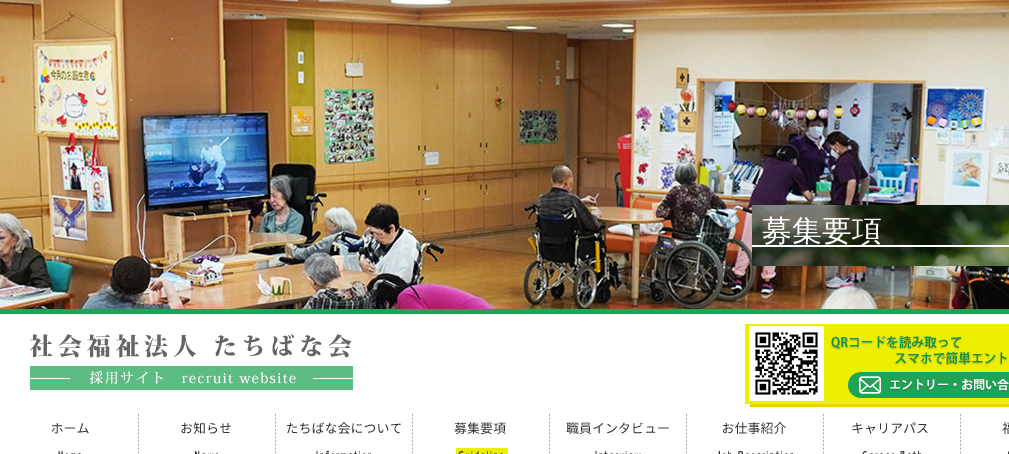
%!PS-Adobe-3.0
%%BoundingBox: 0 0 1009 454
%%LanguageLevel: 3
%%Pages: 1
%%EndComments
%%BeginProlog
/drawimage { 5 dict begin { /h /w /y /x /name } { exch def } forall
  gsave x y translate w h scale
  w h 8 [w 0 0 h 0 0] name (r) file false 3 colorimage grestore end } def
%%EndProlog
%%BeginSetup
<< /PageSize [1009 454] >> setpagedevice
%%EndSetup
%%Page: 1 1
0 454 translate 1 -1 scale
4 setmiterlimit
1 setgray
0 0 1009 454 rectfill
(images/1.raw) 0 0 1009 309 drawimage
(images/2.raw) 752 205 257 61 drawimage
(images/3.raw) 138 414 823 40 drawimage
0.122 0.639 0.341 setrgbcolor
0 309 1009 5 rectfill
(images/4.raw) 30 334 323 56 drawimage
(images/5.raw) 745 324 264 83 drawimage
(images/6.raw) 51 423 38 31 drawimage
(images/7.raw) 181 422 50 32 drawimage
(images/8.raw) 287 422 114 32 drawimage
(images/9.raw) 454 422 54 32 drawimage
(images/10.raw) 566 422 103 32 drawimage
(images/11.raw) 718 422 75 32 drawimage
(images/12.raw) 852 422 76 32 drawimage
(images/13.raw) 1002 422 7 32 drawimage
/WenQuanYiZenHei-Medium [30 0 0 -30 0 0] selectfont
1 setgray
762 241 moveto (募集要項) show
showpage
%%EOF
